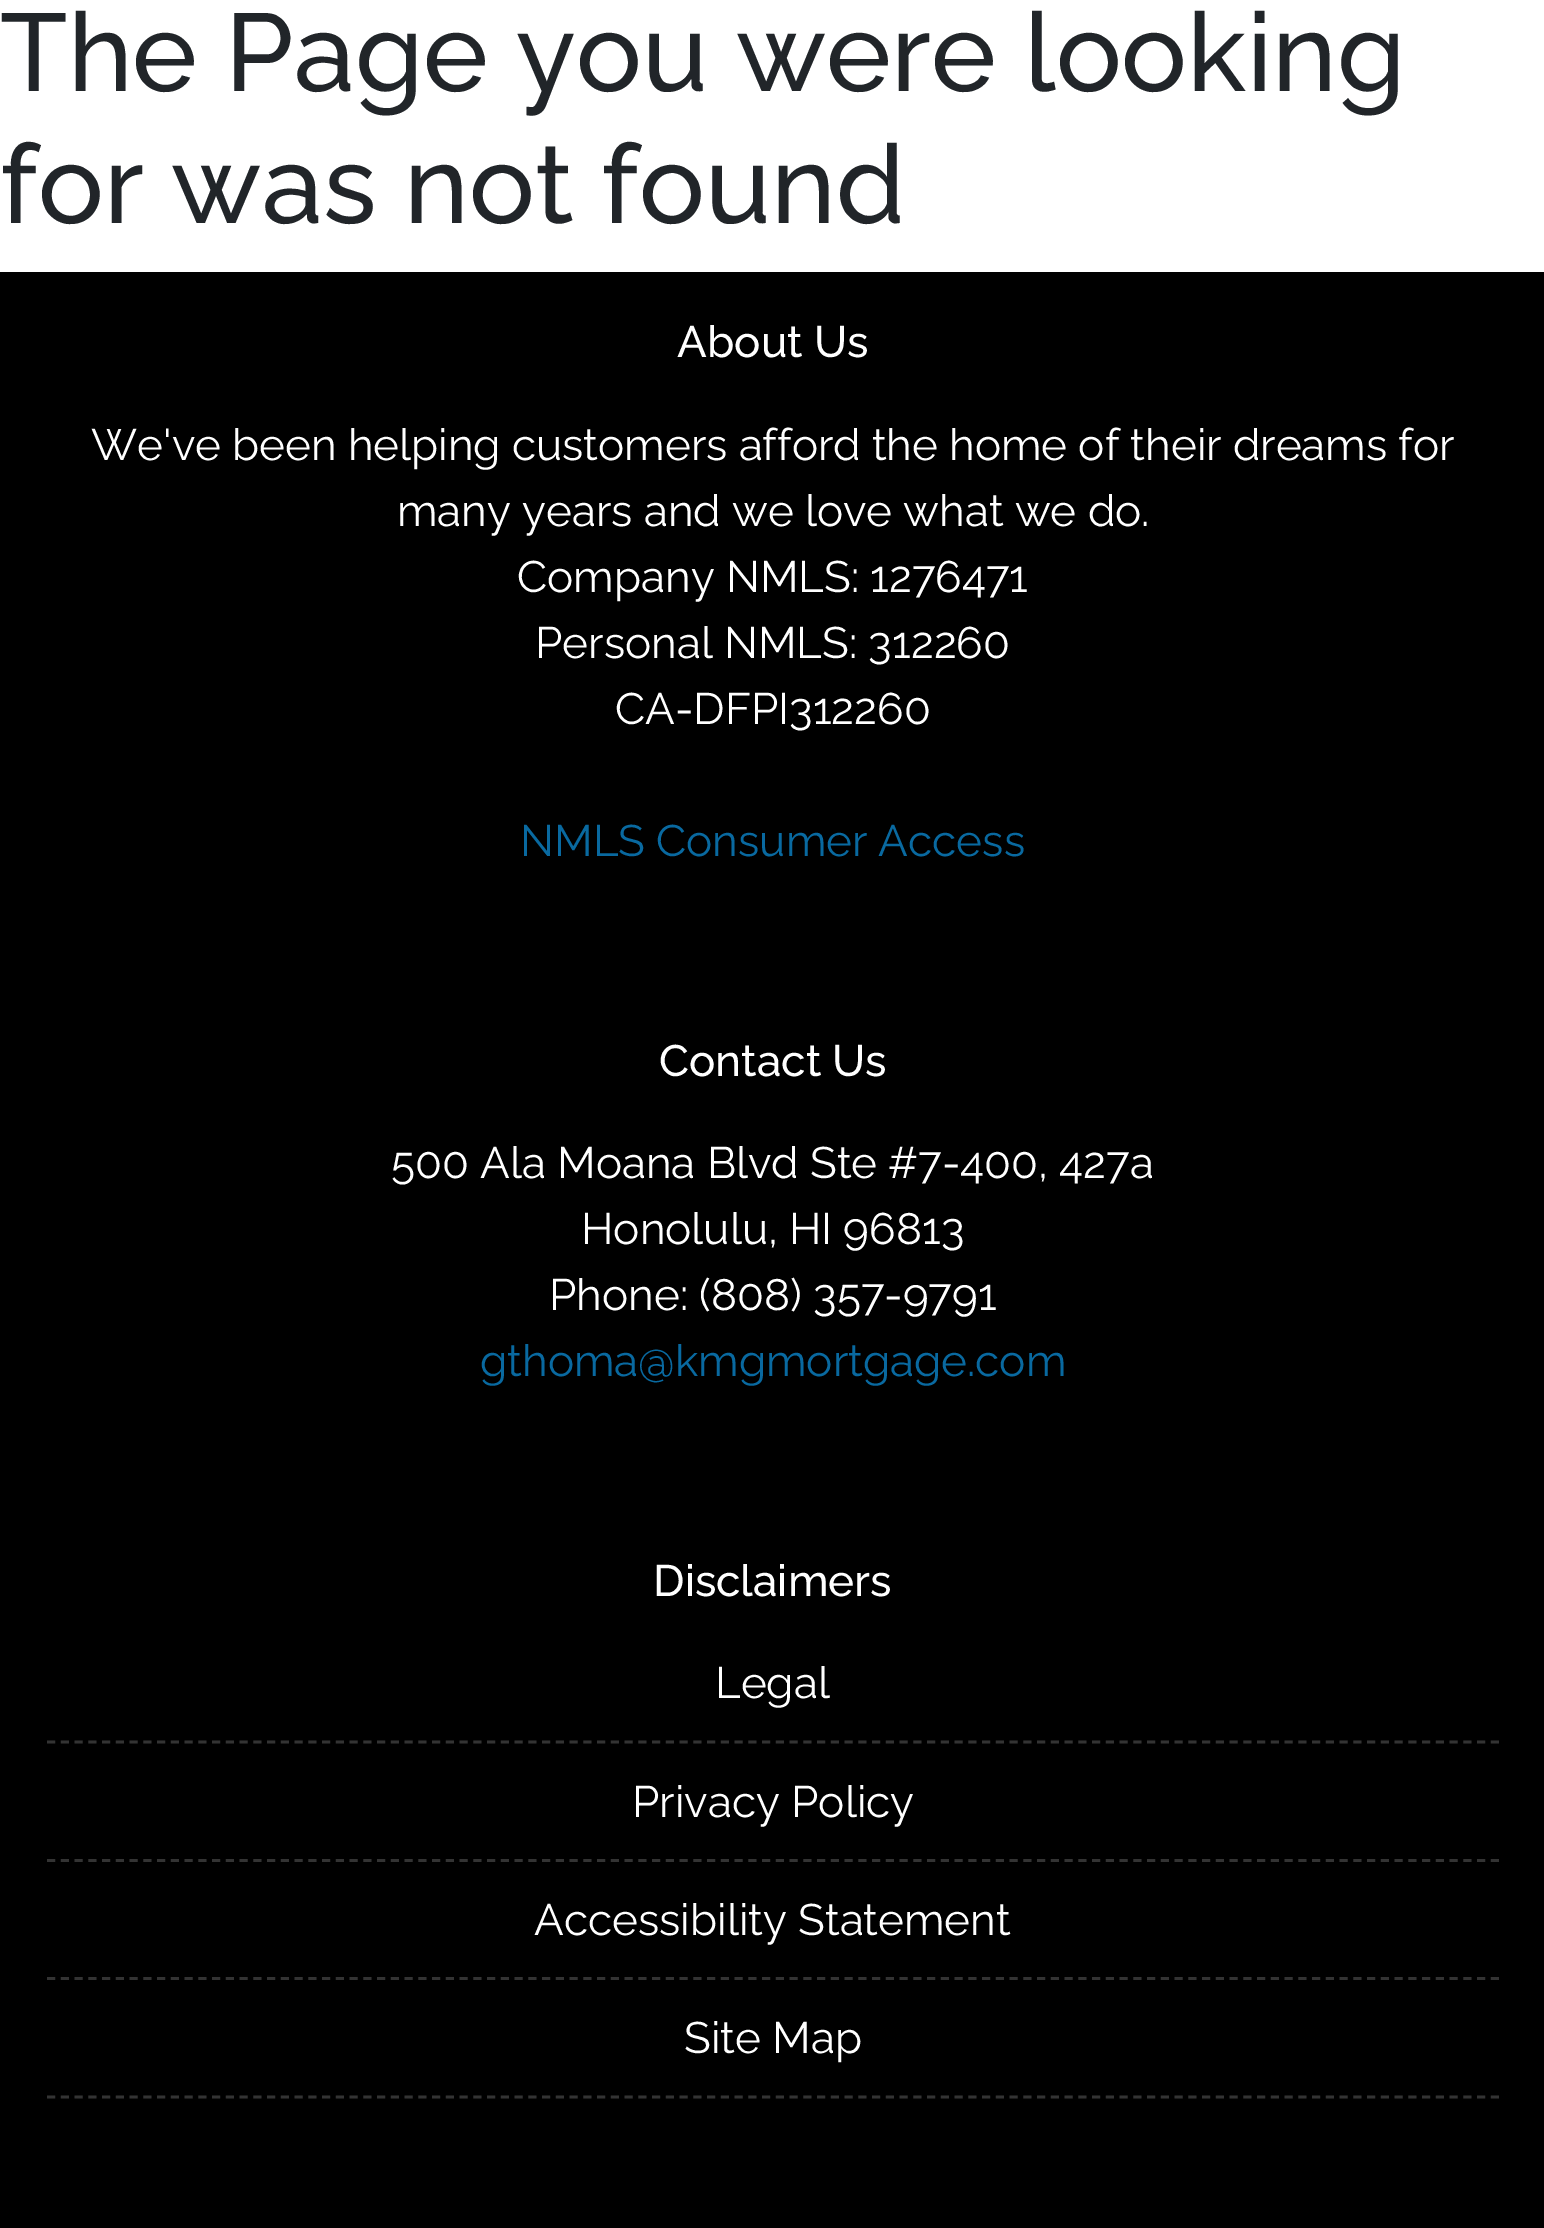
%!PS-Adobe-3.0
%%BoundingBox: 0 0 1544 2228
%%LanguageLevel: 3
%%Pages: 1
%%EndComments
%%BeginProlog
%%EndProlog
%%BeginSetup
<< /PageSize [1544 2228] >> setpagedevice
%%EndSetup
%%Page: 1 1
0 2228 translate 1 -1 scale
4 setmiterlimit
1 setgray
0 0 1544 2228 rectfill
0 setgray
0 272 1544 1956 rectfill
0.2 setgray
2.8 setlinewidth
[8.25 5.5] 0 setdash
newpath 47 1742 moveto 1499 1742 lineto stroke
newpath 47 1860.5 moveto 1499 1860.5 lineto stroke
newpath 47 1978.5 moveto 1499 1978.5 lineto stroke
newpath 47 2097 moveto 1499 2097 lineto stroke
/Raleway-Medium [110 0 0 -110 0 0] selectfont
0.129 0.145 0.161 setrgbcolor
0 91 moveto (The Page you were looking) show
0 223 moveto (for was not found) show
/Raleway-Medium [44 0 0 -44 0 0] selectfont
1 setgray
677 357 moveto (About Us) show
/Raleway-Regular [44 0 0 -44 0 0] selectfont
91 460 moveto (We've been helping customers afford the home of their dreams for) show
397 526 moveto (many years and we love what we do.) show
517 592 moveto (Company NMLS: 1276471) show
535 658 moveto (Personal NMLS: 312260) show
615 724 moveto (CA-DFPI312260) show
0.035 0.412 0.627 setrgbcolor
520 856 moveto (NMLS Consumer Access) show
/Raleway-Medium [44 0 0 -44 0 0] selectfont
1 setgray
659 1076 moveto (Contact Us) show
/Raleway-Regular [44 0 0 -44 0 0] selectfont
391 1178 moveto (500 Ala Moana Blvd Ste #7-400, 427a) show
581 1244 moveto (Honolulu, HI 96813) show
549 1310 moveto (Phone: \(808\) 357-9791) show
0.035 0.412 0.627 setrgbcolor
480 1376 moveto (gthoma@kmgmortgage.com) show
/Raleway-Medium [44 0 0 -44 0 0] selectfont
1 setgray
653 1596 moveto (Disclaimers) show
/Raleway-Regular [44 0 0 -44 0 0] selectfont
715 1698 moveto (Legal) show
632 1817 moveto (Privacy Policy) show
534 1935 moveto (Accessibility Statement) show
684 2053 moveto (Site Map) show
showpage
%%EOF
